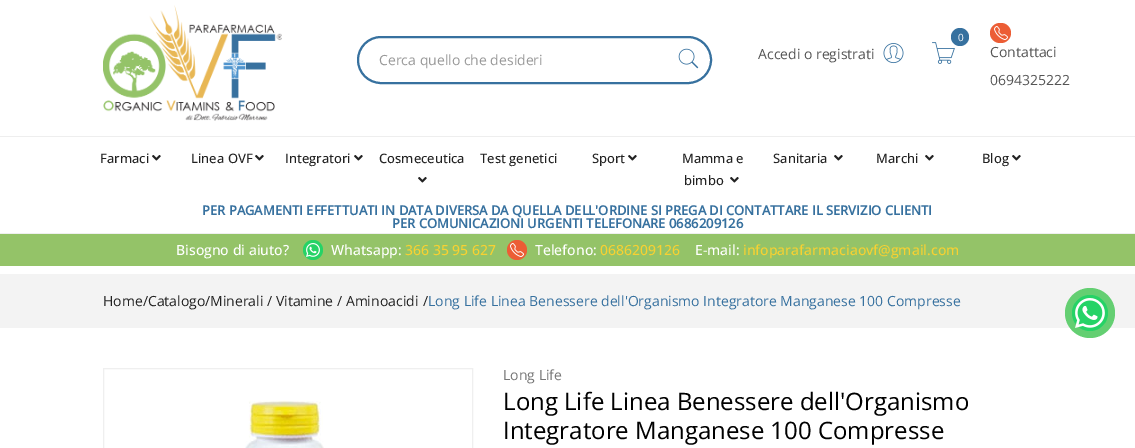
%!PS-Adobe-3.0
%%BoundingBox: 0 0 1135 448
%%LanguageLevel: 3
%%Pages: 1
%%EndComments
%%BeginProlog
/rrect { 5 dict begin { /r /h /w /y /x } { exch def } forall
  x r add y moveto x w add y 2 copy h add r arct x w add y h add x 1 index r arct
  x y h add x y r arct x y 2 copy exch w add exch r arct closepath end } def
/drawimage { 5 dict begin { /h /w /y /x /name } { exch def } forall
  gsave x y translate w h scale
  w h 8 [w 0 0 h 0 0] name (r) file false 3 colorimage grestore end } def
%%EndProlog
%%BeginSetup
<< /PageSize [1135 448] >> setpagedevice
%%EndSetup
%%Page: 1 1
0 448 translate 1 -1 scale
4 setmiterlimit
1 setgray
0 0 1135 448 rectfill
(images/1.raw) 103 5 179 116 drawimage
0.216 0.443 0.624 setrgbcolor
2 setlinewidth
358 37 353 46 23 rrect stroke
(images/2.raw) 678 48 21 21 drawimage
(images/3.raw) 932 42 23 22 drawimage
newpath 960 37 9 0 360 arc closepath fill
(images/4.raw) 883 43 21 21 drawimage
0.925 0.365 0.208 setrgbcolor
990 23 21 20 10 rrect fill
(images/5.raw) 994 26 14 14 drawimage
0.933 setgray
0 136 1135 1 rectfill
(images/6.raw) 152 155 9 6 drawimage
(images/6.raw) 255 155 9 6 drawimage
(images/6.raw) 354 155 9 6 drawimage
(images/6.raw) 418 177 9 6 drawimage
(images/6.raw) 628 155 9 6 drawimage
(images/6.raw) 730 177 9 6 drawimage
(images/6.raw) 834 155 9 6 drawimage
(images/6.raw) 925 155 9 6 drawimage
(images/6.raw) 1012 155 9 6 drawimage
0.937 setgray
0 233 1135 1 rectfill
0.58 0.765 0.408 setrgbcolor
0 234 1135 32 rectfill
0.145 0.827 0.4 setrgbcolor
newpath 313 250 10 0 360 arc closepath fill
(images/7.raw) 306 243 14 14 drawimage
0.925 0.365 0.208 setrgbcolor
newpath 517 250 10 0 360 arc closepath fill
(images/5.raw) 510 243 14 14 drawimage
0.953 setgray
0 274 1135 54 rectfill
0.937 setgray
1 setlinewidth
103.5 368.5 369 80 rectstroke
(images/8.raw) 245 400 79 48 drawimage
0.392 0.812 0.447 setrgbcolor
newpath 1090 313 25 0 360 arc closepath fill
0.145 0.827 0.4 setrgbcolor
newpath 1090 313 18 0 360 arc closepath fill
(images/9.raw) 1075 298 30 30 drawimage
/OpenSans-Regular [14 0 0 -14 0 0] selectfont
0.6 setgray
379 65 moveto (Cerca quello che desideri) show
/OpenSans-Regular [10 0 0 -10 0 0] selectfont
1 setgray
958 41 moveto (0) show
/OpenSans-Regular [14 0 0 -14 0 0] selectfont
0.333 setgray
758 59 moveto (Accedi o registrati) show
990 57 moveto (Contattaci) show
990 85 moveto (0694325222) show
/OpenSans-Medium [13 0 0 -13 0 0] selectfont
0.133 setgray
100 163 moveto (Farmaci) show
191 163 moveto (Linea OVF) show
285 163 moveto (Integratori) show
379 163 moveto (Cosmeceutica) show
480 163 moveto (Test genetici) show
592 163 moveto (Sport) show
682 163 moveto (Mamma e) show
684 185 moveto (bimbo) show
773 163 moveto (Sanitaria) show
876 163 moveto (Marchi) show
982 163 moveto (Blog) show
/OpenSans-Bold [13 0 0 -13 0 0] selectfont
0.216 0.443 0.624 setrgbcolor
202 215 moveto (PER PAGAMENTI EFFETTUATI IN DATA DIVERSA DA QUELLA DELL'ORDINE SI PREGA DI CONTATTARE IL SERVIZIO CLIENTI) show
392 228 moveto (PER COMUNICAZIONI URGENTI TELEFONARE 0686209126) show
/OpenSans-Medium [14 0 0 -14 0 0] selectfont
1 setgray
176 255 moveto (Bisogno di aiuto?) show
331 255 moveto (Whatsapp:) show
0.969 0.82 0.196 setrgbcolor
405 255 moveto (366 35 95 627) show
1 setgray
535 255 moveto (Telefono:) show
0.969 0.82 0.196 setrgbcolor
600 255 moveto (0686209126) show
1 setgray
695 255 moveto (E-mail:) show
0.969 0.82 0.196 setrgbcolor
743 255 moveto (infoparafarmaciaovf@gmail.com) show
/OpenSans-Regular [14 0 0 -14 0 0] selectfont
0.133 setgray
103 306 moveto (Home/Catalogo/Minerali / Vitamine / Aminoacidi) show
423 306 moveto (/) show
0.216 0.443 0.624 setrgbcolor
428 306 moveto (Long Life Linea Benessere dell'Organismo Integratore Manganese 100 Compresse) show
0.467 setgray
503 380 moveto (Long Life) show
/OpenSans-Regular [24 0 0 -24 0 0] selectfont
0 setgray
503 410 moveto (Long Life Linea Benessere dell'Organismo) show
503 439 moveto (Integratore Manganese 100 Compresse) show
showpage
%%EOF
